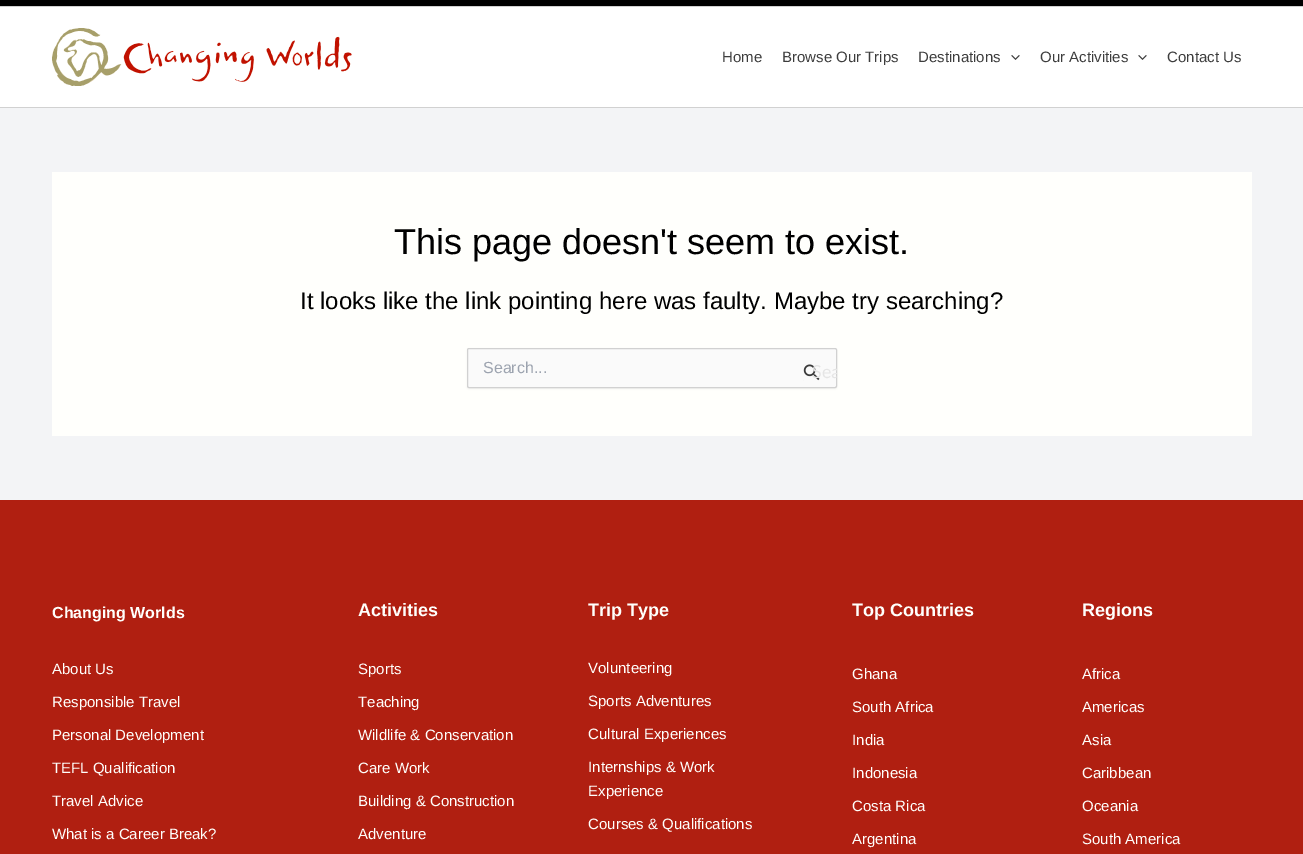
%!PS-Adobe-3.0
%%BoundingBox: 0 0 1303 854
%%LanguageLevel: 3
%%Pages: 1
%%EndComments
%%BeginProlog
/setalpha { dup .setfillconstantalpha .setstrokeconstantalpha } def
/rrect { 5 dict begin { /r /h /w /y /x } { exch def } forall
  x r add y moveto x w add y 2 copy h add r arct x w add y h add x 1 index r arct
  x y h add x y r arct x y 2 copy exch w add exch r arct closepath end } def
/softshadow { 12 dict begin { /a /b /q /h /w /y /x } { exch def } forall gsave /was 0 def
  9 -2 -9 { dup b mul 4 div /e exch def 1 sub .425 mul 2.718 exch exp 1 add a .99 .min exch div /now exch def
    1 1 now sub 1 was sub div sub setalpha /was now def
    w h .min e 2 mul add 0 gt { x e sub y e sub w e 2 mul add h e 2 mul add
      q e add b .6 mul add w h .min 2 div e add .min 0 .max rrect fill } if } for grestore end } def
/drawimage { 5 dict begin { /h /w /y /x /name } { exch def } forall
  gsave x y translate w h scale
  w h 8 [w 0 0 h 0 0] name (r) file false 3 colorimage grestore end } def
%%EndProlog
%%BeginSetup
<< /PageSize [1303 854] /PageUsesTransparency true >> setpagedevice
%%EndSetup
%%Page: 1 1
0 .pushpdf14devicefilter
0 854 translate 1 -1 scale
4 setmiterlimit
0.953 0.957 0.965 setrgbcolor
0 0 1303 854 rectfill
0 setgray
0 0 1303 6 rectfill
0.82 setgray
0 6 1303 1 rectfill
1 setgray
0 7 1303 100 rectfill
0.82 setgray
0 107 1303 1 rectfill
(images/1.raw) 52 28 300 58 drawimage
(images/2.raw) 1011 55 9 5 drawimage
(images/2.raw) 1138 55 9 5 drawimage
1 1 0.988 setrgbcolor
52 172 1200 264 rectfill
0 setgray
467 349 370 40 2 1 0.05 softshadow
0.98 setgray
467.5 348.5 369 39 1.5 rrect gsave fill grestore
0.82 setgray
stroke
(images/3.raw) 803 364 17 17 drawimage
0.69 0.122 0.067 setrgbcolor
0 500 1303 354 rectfill
/LiberationSans-Regular [15 0 0 -15 0 0] selectfont
0.239 setgray
722 62 moveto (Home) show
782 62 moveto (Browse Our Trips) show
918 62 moveto (Destinations) show
1040 62 moveto (Our Activities) show
1167 62 moveto (Contact Us) show
/LiberationSans-Regular [36 0 0 -36 0 0] selectfont
0 setgray
394 254 moveto (This page doesn't seem to exist.) show
/LiberationSans-Regular [24 0 0 -24 0 0] selectfont
300 309 moveto (It looks like the link pointing here was faulty. Maybe try searching?) show
/LiberationSans-Regular [16 0 0 -16 0 0] selectfont
0.612 0.639 0.686 setrgbcolor
483 373 moveto (Search...) show
gsave
792 348 45 48 2 rrect clip newpath
/Lato-Regular [18 0 0 -18 0 0] selectfont
0.898 setgray
812 378 moveto (Sea) show
grestore
/LiberationSans-Bold [16 0 0 -16 0 0] selectfont
1 1 0.988 setrgbcolor
52 618 moveto (Changing Worlds) show
/LiberationSans-Regular [15 0 0 -15 0 0] selectfont
52 674 moveto (About Us) show
52 707 moveto (Responsible Travel) show
52 740 moveto (Personal Development) show
52 773 moveto (TEFL Qualification) show
52 806 moveto (Travel Advice) show
52 839 moveto (What is a Career Break?) show
/LiberationSans-Bold [18 0 0 -18 0 0] selectfont
358 616 moveto (Activities) show
/LiberationSans-Regular [15 0 0 -15 0 0] selectfont
358 674 moveto (Sports) show
358 707 moveto (Teaching) show
358 740 moveto (Wildlife & Conservation) show
358 773 moveto (Care Work) show
358 806 moveto (Building & Construction) show
358 839 moveto (Adventure) show
/LiberationSans-Bold [18 0 0 -18 0 0] selectfont
588 616 moveto (Trip Type) show
/LiberationSans-Regular [15 0 0 -15 0 0] selectfont
588 673 moveto (Volunteering) show
588 706 moveto (Sports Adventures) show
588 739 moveto (Cultural Experiences) show
588 772 moveto (Internships & Work) show
588 796 moveto (Experience) show
588 829 moveto (Courses & Qualifications) show
/LiberationSans-Bold [18 0 0 -18 0 0] selectfont
852 616 moveto (Top Countries) show
/LiberationSans-Regular [15 0 0 -15 0 0] selectfont
852 679 moveto (Ghana) show
852 712 moveto (South Africa) show
852 745 moveto (India) show
852 778 moveto (Indonesia) show
852 811 moveto (Costa Rica) show
852 844 moveto (Argentina) show
/LiberationSans-Bold [18 0 0 -18 0 0] selectfont
1082 616 moveto (Regions) show
/LiberationSans-Regular [15 0 0 -15 0 0] selectfont
1082 679 moveto (Africa) show
1082 712 moveto (Americas) show
1082 745 moveto (Asia) show
1082 778 moveto (Caribbean) show
1082 811 moveto (Oceania) show
1082 844 moveto (South America) show
.poppdf14devicefilter showpage
%%EOF
